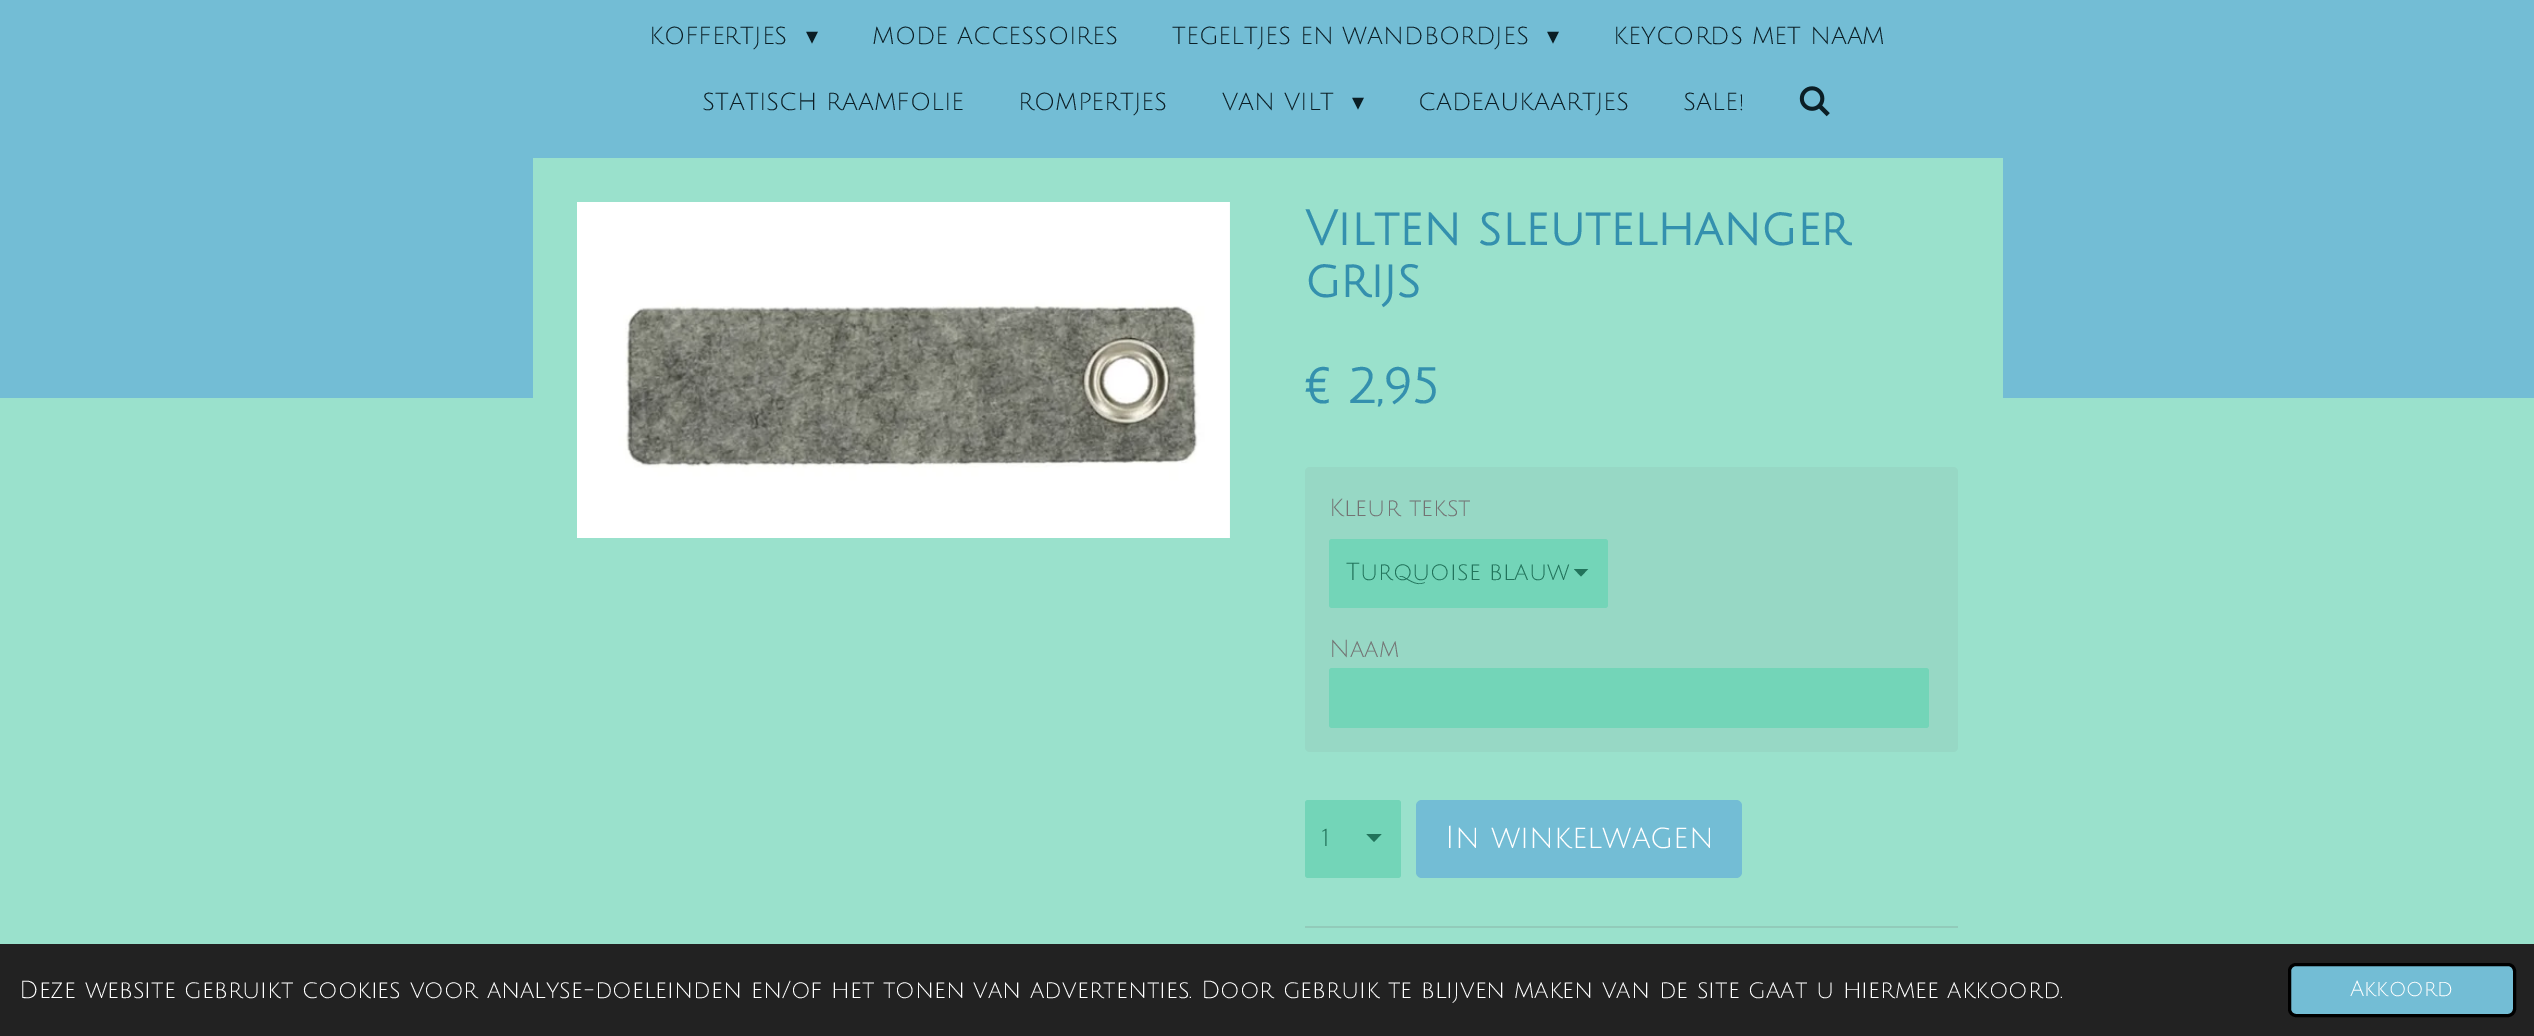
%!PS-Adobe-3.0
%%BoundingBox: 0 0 2534 1036
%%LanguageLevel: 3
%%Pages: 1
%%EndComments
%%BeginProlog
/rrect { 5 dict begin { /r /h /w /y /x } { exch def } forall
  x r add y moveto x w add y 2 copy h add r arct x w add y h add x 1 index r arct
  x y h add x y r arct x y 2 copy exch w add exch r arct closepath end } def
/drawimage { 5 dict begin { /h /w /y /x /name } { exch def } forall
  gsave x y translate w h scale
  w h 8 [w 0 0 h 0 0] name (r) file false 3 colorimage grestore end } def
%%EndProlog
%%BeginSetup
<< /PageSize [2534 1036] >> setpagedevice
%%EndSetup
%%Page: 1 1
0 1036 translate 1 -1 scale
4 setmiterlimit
0.604 0.882 0.8 setrgbcolor
0 0 2534 1036 rectfill
0.451 0.741 0.835 setrgbcolor
0 0 2534 398 rectfill
(images/1.raw) 1799 86 31 31 drawimage
0.604 0.882 0.8 setrgbcolor
533 158 1470 240 rectfill
(images/2.raw) 577 202 653 336 drawimage
0.592 0.847 0.773 setrgbcolor
1305 467 653 285 5 rrect fill
0.451 0.835 0.722 setrgbcolor
1329 539 279 69 3 rrect fill
gsave
1574 569 16 9 rectclip
0.133 0.451 0.357 setrgbcolor
newpath 1581 576.5 moveto 1573.5 568.5 lineto 1588.5 568.5 lineto closepath fill
grestore
1329 668 600 60 3 rrect fill
1305 800 96 78 3 rrect fill
0.133 0.451 0.357 setrgbcolor
newpath 1374 842 moveto 1366.5 834 lineto 1381.5 834 lineto closepath fill
0.451 0.741 0.835 setrgbcolor
1416 800 326 78 6 rrect fill
0.573 0.796 0.729 setrgbcolor
1305 926 653 2 rectfill
0.133 setgray
0 944 2534 92 rectfill
0.451 0.741 0.835 setrgbcolor
2289.5 964.5 225 51 6.5 rrect gsave fill grestore
0 setgray
3 setlinewidth
stroke
/JuliusSansOne-Regular [24 0 0 -24 0 0] selectfont
0.043 0.118 0.145 setrgbcolor
649 44 moveto (KOFFERTJES) show
/DejaVuSans-Regular [24 0 0 -24 0 0] selectfont
806 44 moveto (▾) show
/JuliusSansOne-Regular [24 0 0 -24 0 0] selectfont
872 44 moveto (MODE ACCESSOIRES) show
1172 44 moveto (TEGELTJES EN WANDBORDJES) show
/DejaVuSans-Regular [24 0 0 -24 0 0] selectfont
1547 44 moveto (▾) show
/JuliusSansOne-Regular [24 0 0 -24 0 0] selectfont
1613 44 moveto (KEYCORDS MET NAAM) show
702 110 moveto (STATISCH RAAMFOLIE) show
1018 110 moveto (ROMPERTJES) show
1222 110 moveto (VAN VILT) show
/DejaVuSans-Regular [24 0 0 -24 0 0] selectfont
1352 110 moveto (▾) show
/JuliusSansOne-Regular [24 0 0 -24 0 0] selectfont
1418 110 moveto (CADEAUKAARTJES) show
1683 110 moveto (SALE!) show
/JuliusSansOne-Bold [48 0 0 -48 0 0] selectfont
0.204 0.565 0.682 setrgbcolor
1305 245 moveto (Vilten sleutelhanger) show
1305 297 moveto (grijs) show
1305 403 moveto (€ 2,95) show
/JuliusSansOne-Regular [24 0 0 -24 0 0] selectfont
0.451 setgray
1329 516 moveto (Kleur tekst) show
0.133 0.451 0.357 setrgbcolor
1346 580 moveto (Turquoise blauw) show
0.451 setgray
1329 657 moveto (Naam) show
0.133 0.451 0.357 setrgbcolor
1322 846 moveto (1) show
/JuliusSansOne-Regular [31.25 0 0 -31.25 0 0] selectfont
1 setgray
1445 848 moveto (In winkelwagen) show
/JuliusSansOne-Regular [24 0 0 -24 0 0] selectfont
19 998 moveto (Deze website gebruikt cookies voor analyse-doeleinden en/of het tonen van advertenties. Door gebruik te blijven maken van de site gaat u hiermee akkoord.) show
/JuliusSansOne-Regular [21.5 0 0 -21.5 0 0] selectfont
2350 996 moveto (Akkoord) show
showpage
%%EOF
